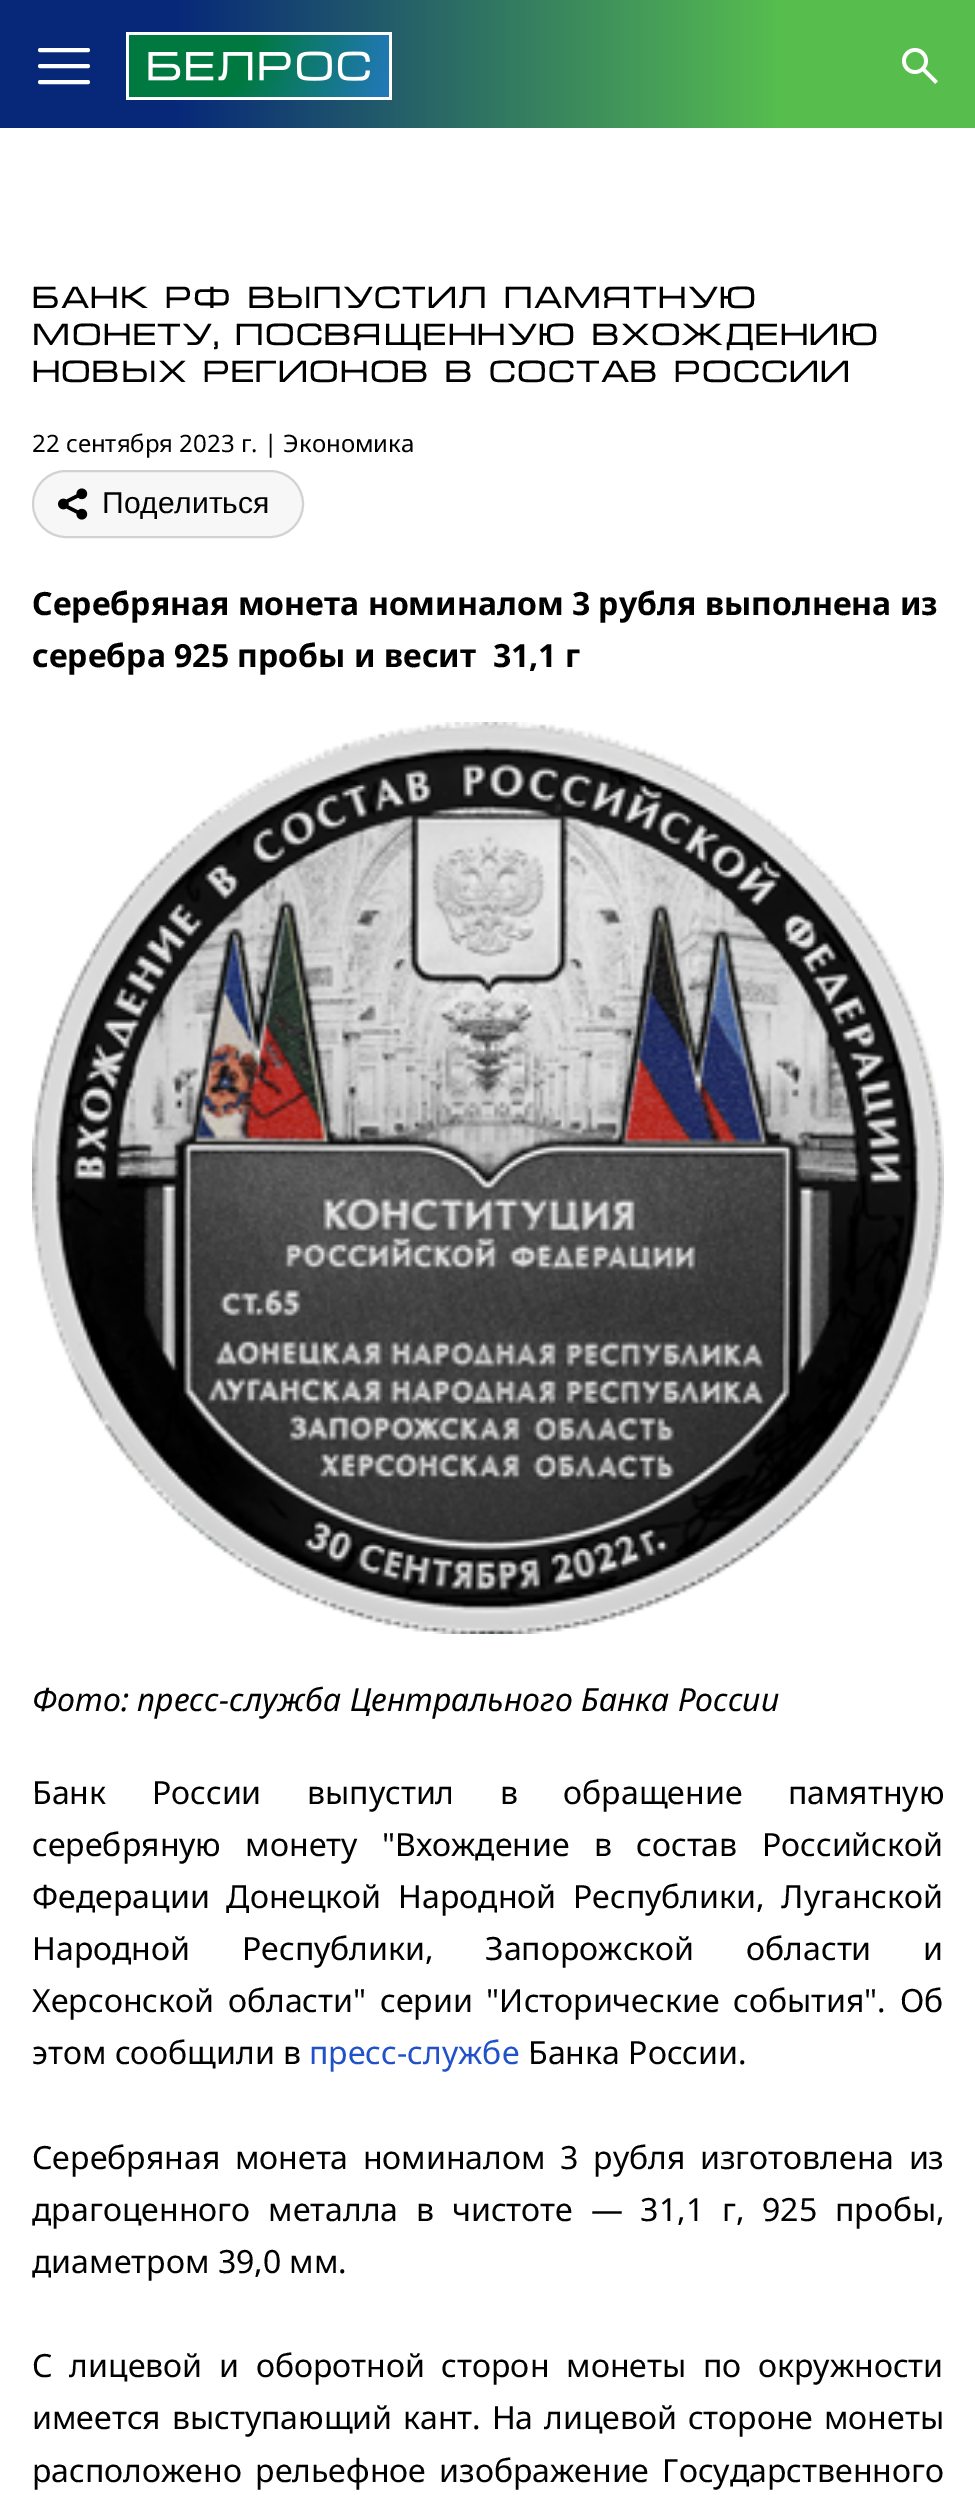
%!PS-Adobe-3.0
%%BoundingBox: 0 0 975 2495
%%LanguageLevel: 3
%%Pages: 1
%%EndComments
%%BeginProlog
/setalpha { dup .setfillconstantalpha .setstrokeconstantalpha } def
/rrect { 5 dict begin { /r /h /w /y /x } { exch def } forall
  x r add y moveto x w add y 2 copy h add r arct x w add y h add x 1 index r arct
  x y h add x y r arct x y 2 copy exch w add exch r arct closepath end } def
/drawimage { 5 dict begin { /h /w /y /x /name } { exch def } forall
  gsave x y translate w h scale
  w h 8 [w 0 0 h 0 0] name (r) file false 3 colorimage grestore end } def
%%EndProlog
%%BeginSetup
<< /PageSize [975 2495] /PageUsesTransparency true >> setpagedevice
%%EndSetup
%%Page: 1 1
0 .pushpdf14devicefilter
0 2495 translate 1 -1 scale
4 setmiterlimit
1 setgray
0 0 975 2495 rectfill
gsave newpath 0 0 moveto 975 0 lineto 975 128 lineto 0 128 lineto closepath clip newpath
<< /ShadingType 2 /ColorSpace /DeviceRGB /Coords [0 64 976 64] /Extend [true true] /Function << /FunctionType 3 /Domain [0 1] /Functions [<< /FunctionType 2 /Domain [0 1] /C0 [0.027 0.157 0.475] /C1 [0.027 0.157 0.475] /N 1 >> << /FunctionType 2 /Domain [0 1] /C0 [0.027 0.157 0.475] /C1 [0.341 0.745 0.306] /N 1 >> << /FunctionType 2 /Domain [0 1] /C0 [0.341 0.745 0.306] /C1 [0.341 0.745 0.306] /N 1 >>] /Bounds [0.18 0.8] /Encode [0 1 0 1 0 1] >> >> shfill grestore
4 setlinewidth
1 setlinecap
1 setlinejoin
newpath 40 50 moveto 88 50 lineto 40 66 moveto 88 66 lineto 40 82 moveto 88 82 lineto stroke
(images/1.raw) 126 32 266 68 drawimage
(images/2.raw) 902 48 36 36 drawimage
0.969 setgray
32 470 272 68 34 rrect fill
0.15 setalpha
0 setgray
2 setlinewidth
0 setlinecap
0 setlinejoin
33 471 270 66 33 rrect stroke
1 setalpha
(images/3.raw) 58 488 30 32 drawimage
(images/4.raw) 32 722 912 912 drawimage
/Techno-Regular [32 0 0 -32 0 0] selectfont
32 308 moveto (БАНК РФ ВЫПУСТИЛ ПАМЯТНУЮ) show
32 345 moveto (МОНЕТУ, ПОСВЯЩЕННУЮ ВХОЖДЕНИЮ) show
32 382 moveto (НОВЫХ РЕГИОНОВ В СОСТАВ РОССИИ) show
/NotoSans-Regular [24 0 0 -24 0 0] selectfont
32 452 moveto (22 сентября 2023 г. | Экономика) show
/LiberationSans-Regular [30 0 0 -30 0 0] selectfont
102 513 moveto (Поделиться) show
/NotoSans-Bold [32 0 0 -32 0 0] selectfont
32 615 moveto (Серебряная монета номиналом 3 рубля выполнена из) show
32 667 moveto (серебра 925 пробы и весит  31,1 г) show
/NotoSans-Italic [32 0 0 -32 0 0] selectfont
32 1711 moveto (Фото: пресс-служба Центрального Банка России) show
/NotoSans-Regular [32 0 0 -32 0 0] selectfont
32 1804 moveto 37.25 0 32 (Банк России выпустил в обращение памятную) widthshow
32 1856 moveto 16 0 32 (серебряную монету "Вхождение в состав Российской) widthshow
32 1908 moveto 8.5 0 32 (Федерации Донецкой Народной Республики, Луганской) widthshow
32 1960 moveto 43.5 0 32 (Народной Республики, Запорожской области и) widthshow
32 2012 moveto 5.5 0 32 (Херсонской области" серии "Исторические события". Об) widthshow
32 2064 moveto (этом сообщили в) show
0.129 0.318 0.792 setrgbcolor
309 2064 moveto (пресс-службе) show
0 setgray
528 2064 moveto (Банка России.) show
32 2169 moveto 6.25 0 32 (Серебряная монета номиналом 3 рубля изготовлена из) widthshow
32 2221 moveto 9.5 0 32 (драгоценного металла в чистоте — 31,1 г, 925 пробы,) widthshow
32 2273 moveto (диаметром 39,0 мм.) show
32 2377 moveto 8.5 0 32 (С лицевой и оборотной сторон монеты по окружности) widthshow
32 2429 moveto 2.5 0 32 (имеется выступающий кант. На лицевой стороне монеты) widthshow
32 2482 moveto 5 0 32 (расположено рельефное изображение Государственного) widthshow
.poppdf14devicefilter showpage
%%EOF
